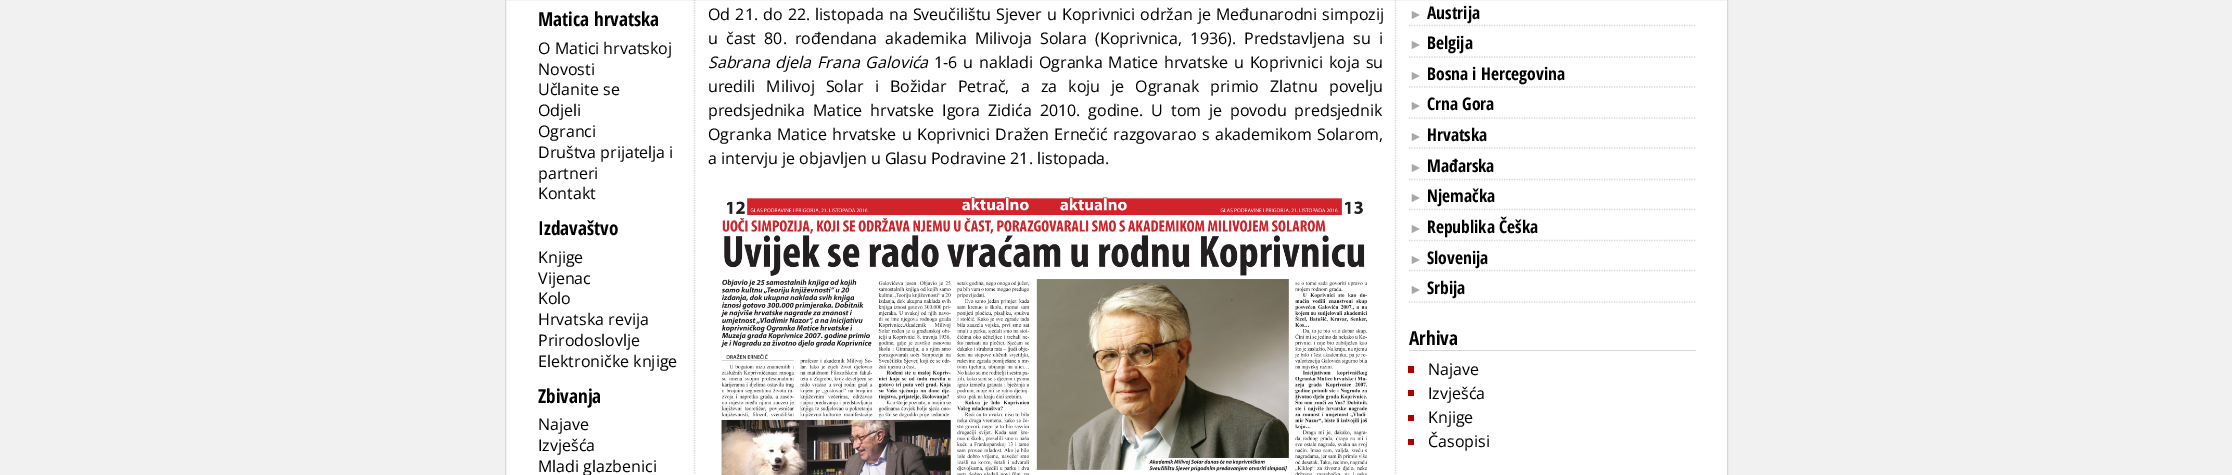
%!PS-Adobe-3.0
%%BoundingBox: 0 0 2232 475
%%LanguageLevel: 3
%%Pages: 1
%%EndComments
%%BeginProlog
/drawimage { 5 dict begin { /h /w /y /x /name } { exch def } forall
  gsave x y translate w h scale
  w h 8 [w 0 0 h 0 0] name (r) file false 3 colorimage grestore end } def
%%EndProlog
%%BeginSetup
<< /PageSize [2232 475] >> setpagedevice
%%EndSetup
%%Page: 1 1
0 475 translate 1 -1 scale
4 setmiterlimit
0.945 setgray
0 0 2232 475 rectfill
1 setgray
newpath 505.5 -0.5 moveto 1727.5 -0.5 lineto 1727.5 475.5 lineto 505.5 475.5 lineto closepath gsave fill grestore
0.843 setgray
stroke
1.2 setlinewidth
[1.25 1.25] 0 setdash
newpath 1395.5 -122.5 moveto 1395.5 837.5 lineto stroke
newpath 694.5 -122.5 moveto 694.5 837.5 lineto stroke
(images/1.raw) 721 197 647 278 drawimage
newpath 1409 25.5 moveto 1696 25.5 lineto stroke
newpath 1409 57 moveto 1696 57 lineto stroke
newpath 1409 87 moveto 1696 87 lineto stroke
newpath 1409 118 moveto 1696 118 lineto stroke
newpath 1409 148 moveto 1696 148 lineto stroke
newpath 1409 179.5 moveto 1696 179.5 lineto stroke
newpath 1409 209.5 moveto 1696 209.5 lineto stroke
newpath 1409 240.5 moveto 1696 240.5 lineto stroke
newpath 1409 270.5 moveto 1696 270.5 lineto stroke
newpath 1409 302 moveto 1696 302 lineto stroke
1409 350 287 1 rectfill
0.686 0 0 setrgbcolor
1408 366 6 7 rectfill
1408 390 6 6 rectfill
1408 415 6 6 rectfill
1408 439 6 6 rectfill
/OpenSansCondensed-Bold [19.25 0 0 -19.25 0 0] selectfont
0 setgray
538 26 moveto (Matica hrvatska) show
/OpenSans-Regular [16 0 0 -16 0 0] selectfont
538 54 moveto (O Matici hrvatskoj) show
538 75 moveto (Novosti) show
538 95 moveto (Učlanite se) show
538 116 moveto (Odjeli) show
538 137 moveto (Ogranci) show
538 158 moveto (Društva prijatelja i) show
538 179 moveto (partneri) show
538 199 moveto (Kontakt) show
/OpenSansCondensed-Bold [19.25 0 0 -19.25 0 0] selectfont
538 235 moveto (Izdavaštvo) show
/OpenSans-Regular [16 0 0 -16 0 0] selectfont
538 263 moveto (Knjige) show
538 284 moveto (Vijenac) show
538 304 moveto (Kolo) show
538 325 moveto (Hrvatska revija) show
538 346 moveto (Prirodoslovlje) show
538 367 moveto (Elektroničke knjige) show
/OpenSansCondensed-Bold [19.25 0 0 -19.25 0 0] selectfont
538 403 moveto (Zbivanja) show
/OpenSans-Regular [16 0 0 -16 0 0] selectfont
538 430 moveto (Najave) show
538 451 moveto (Izvješća) show
538 472 moveto (Mladi glazbenici) show
708 20 moveto 1 0 32 (Od 21. do 22. listopada na Sveučilištu Sjever u Koprivnici održan je Međunarodni simpozij) widthshow
708 44 moveto 4.1 0 32 (u čast 80. rođendana akademika Milivoja Solara \(Koprivnica, 1936\). Predstavljena su i) widthshow
/OpenSans-Italic [16 0 0 -16 0 0] selectfont
708 68 moveto 1.75 0 32 (Sabrana djela Frana Galovića) widthshow
/OpenSans-Regular [16 0 0 -16 0 0] selectfont
934 68 moveto 1.75 0 32 (1-6 u nakladi Ogranka Matice hrvatske u Koprivnici koja su) widthshow
708 92 moveto 7 0 32 (uredili Milivoj Solar i Božidar Petrač, a za koju je Ogranak primio Zlatnu povelju) widthshow
708 116 moveto 3.75 0 32 (predsjednika Matice hrvatske Igora Zidića 2010. godine. U tom je povodu predsjednik) widthshow
708 140 moveto 1.25 0 32 (Ogranka Matice hrvatske u Koprivnici Dražen Ernečić razgovarao s akademikom Solarom,) widthshow
708 164 moveto (a intervju je objavljen u Glasu Podravine 21. listopada.) show
/LiberationSans-Bold [14 0 0 -14 0 0] selectfont
0.659 setgray
1409 19 moveto (►) show
/OpenSansCondensed-Bold [17.5 0 0 -17.5 0 0] selectfont
0 setgray
1427 19 moveto (Austrija) show
/LiberationSans-Bold [14 0 0 -14 0 0] selectfont
0.659 setgray
1409 49 moveto (►) show
/OpenSansCondensed-Bold [17.5 0 0 -17.5 0 0] selectfont
0 setgray
1427 49 moveto (Belgija) show
/LiberationSans-Bold [14 0 0 -14 0 0] selectfont
0.659 setgray
1409 80 moveto (►) show
/OpenSansCondensed-Bold [17.5 0 0 -17.5 0 0] selectfont
0 setgray
1427 80 moveto (Bosna i Hercegovina) show
/LiberationSans-Bold [14 0 0 -14 0 0] selectfont
0.659 setgray
1409 110 moveto (►) show
/OpenSansCondensed-Bold [17.5 0 0 -17.5 0 0] selectfont
0 setgray
1427 110 moveto (Crna Gora) show
/LiberationSans-Bold [14 0 0 -14 0 0] selectfont
0.659 setgray
1409 141 moveto (►) show
/OpenSansCondensed-Bold [17.5 0 0 -17.5 0 0] selectfont
0 setgray
1427 141 moveto (Hrvatska) show
/LiberationSans-Bold [14 0 0 -14 0 0] selectfont
0.659 setgray
1409 172 moveto (►) show
/OpenSansCondensed-Bold [17.5 0 0 -17.5 0 0] selectfont
0 setgray
1427 172 moveto (Mađarska) show
/LiberationSans-Bold [14 0 0 -14 0 0] selectfont
0.659 setgray
1409 202 moveto (►) show
/OpenSansCondensed-Bold [17.5 0 0 -17.5 0 0] selectfont
0 setgray
1427 202 moveto (Njemačka) show
/LiberationSans-Bold [14 0 0 -14 0 0] selectfont
0.659 setgray
1409 233 moveto (►) show
/OpenSansCondensed-Bold [17.5 0 0 -17.5 0 0] selectfont
0 setgray
1427 233 moveto (Republika Češka) show
/LiberationSans-Bold [14 0 0 -14 0 0] selectfont
0.659 setgray
1409 264 moveto (►) show
/OpenSansCondensed-Bold [17.5 0 0 -17.5 0 0] selectfont
0 setgray
1427 264 moveto (Slovenija) show
/LiberationSans-Bold [14 0 0 -14 0 0] selectfont
0.659 setgray
1409 294 moveto (►) show
/OpenSansCondensed-Bold [17.5 0 0 -17.5 0 0] selectfont
0 setgray
1427 294 moveto (Srbija) show
/OpenSansCondensed-Bold [19.25 0 0 -19.25 0 0] selectfont
1409 345 moveto (Arhiva) show
/OpenSans-Regular [16 0 0 -16 0 0] selectfont
1428 375 moveto (Najave) show
1428 399 moveto (Izvješća) show
1428 423 moveto (Knjige) show
1428 447 moveto (Časopisi) show
showpage
%%EOF
